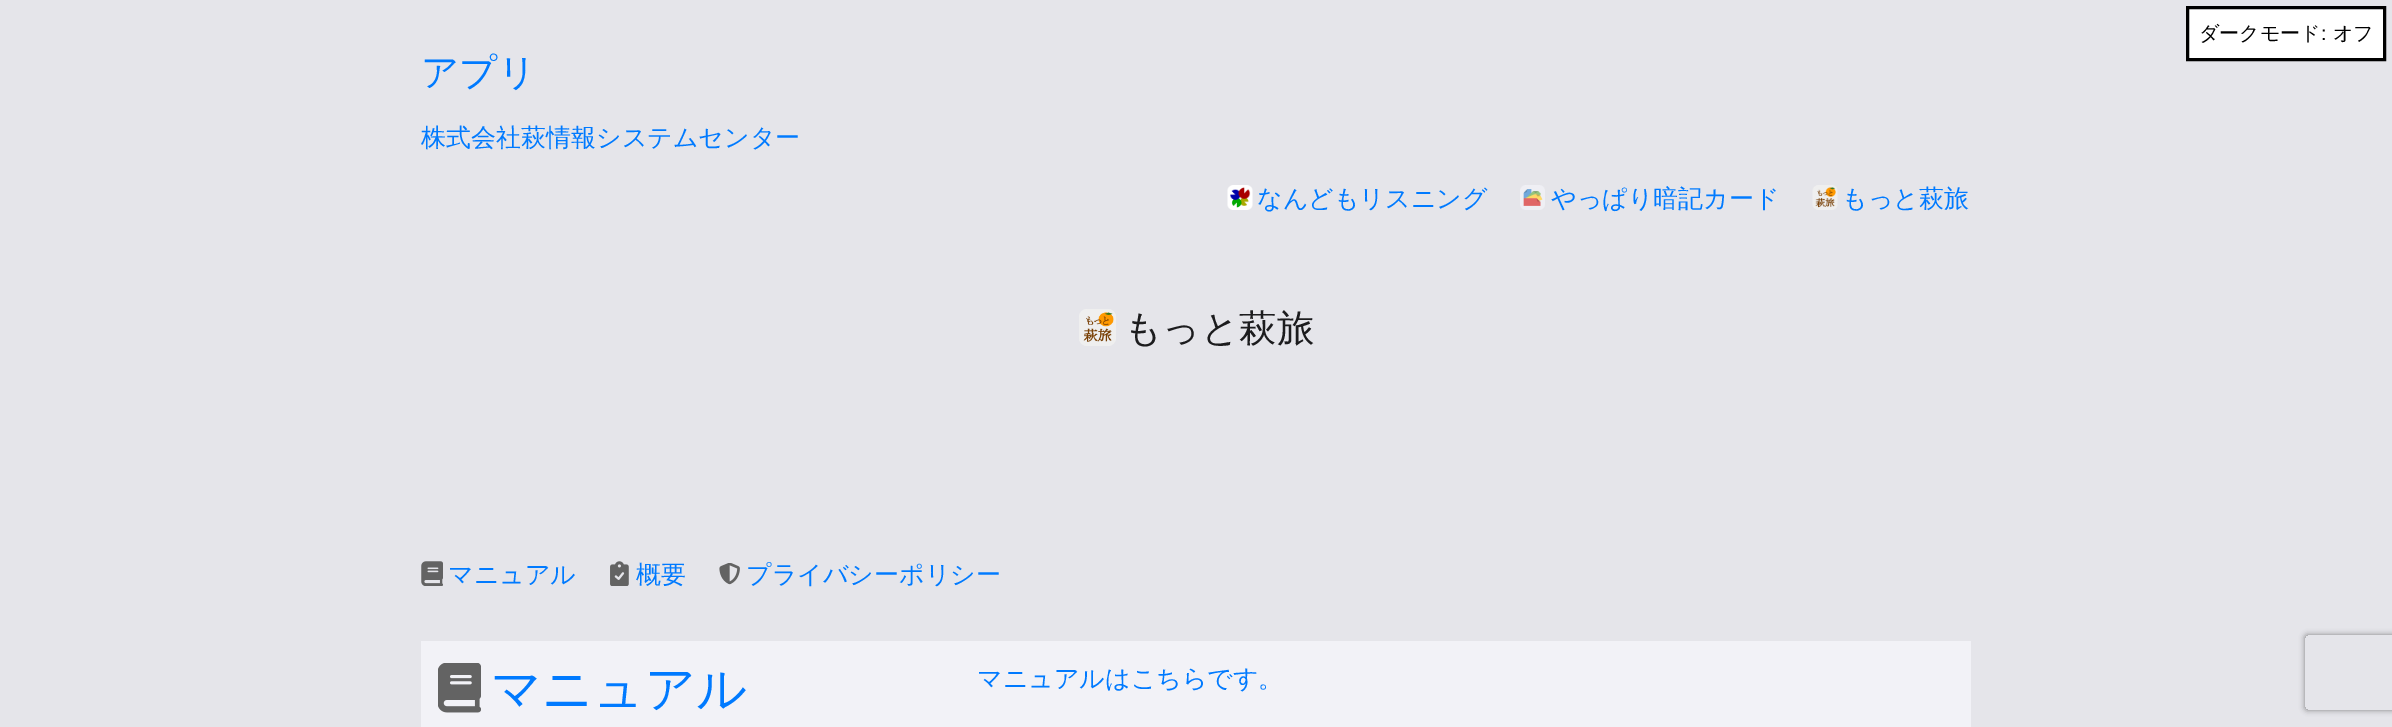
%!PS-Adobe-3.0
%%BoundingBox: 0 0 2392 727
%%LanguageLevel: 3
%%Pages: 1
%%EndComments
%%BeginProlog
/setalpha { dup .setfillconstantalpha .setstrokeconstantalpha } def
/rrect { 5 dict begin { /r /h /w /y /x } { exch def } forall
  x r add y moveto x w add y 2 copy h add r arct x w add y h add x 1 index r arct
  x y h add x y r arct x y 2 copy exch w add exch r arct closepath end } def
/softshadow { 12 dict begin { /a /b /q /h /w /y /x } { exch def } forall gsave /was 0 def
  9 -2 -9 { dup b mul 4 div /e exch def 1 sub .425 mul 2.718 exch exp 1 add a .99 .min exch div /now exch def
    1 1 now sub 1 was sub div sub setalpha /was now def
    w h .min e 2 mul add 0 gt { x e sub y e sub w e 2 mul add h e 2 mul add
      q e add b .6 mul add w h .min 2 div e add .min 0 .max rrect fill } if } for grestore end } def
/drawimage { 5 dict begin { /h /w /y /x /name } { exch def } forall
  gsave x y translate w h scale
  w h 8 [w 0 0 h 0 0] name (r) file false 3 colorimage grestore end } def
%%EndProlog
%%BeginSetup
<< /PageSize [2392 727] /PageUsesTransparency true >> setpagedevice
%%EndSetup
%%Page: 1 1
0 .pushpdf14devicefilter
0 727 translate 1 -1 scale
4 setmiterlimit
0.898 0.898 0.918 setrgbcolor
0 0 2392 727 rectfill
1 setgray
newpath 2187.5 7.5 moveto 2384.5 7.5 lineto 2384.5 59.5 lineto 2187.5 59.5 lineto closepath gsave fill grestore
0 setgray
3 setlinewidth
stroke
(images/1.raw) 1227 185 26 25 drawimage
(images/2.raw) 1520 185 25 25 drawimage
(images/3.raw) 1812 185 26 25 drawimage
(images/4.raw) 1079 309 37 37 drawimage
(images/5.raw) 421 561 22 25 drawimage
(images/6.raw) 610 561 19 25 drawimage
(images/7.raw) 719 563 21 22 drawimage
0.949 0.949 0.969 setrgbcolor
421 641 1550 86 rectfill
(images/8.raw) 438 663 43 50 drawimage
gsave
newpath 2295 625 moveto 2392 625 lineto 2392 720 lineto 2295 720 lineto closepath 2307.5 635 moveto 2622.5 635 lineto 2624 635 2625 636 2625 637.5 curveto 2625 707.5 lineto 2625 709 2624 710 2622.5 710 curveto 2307.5 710 lineto 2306 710 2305 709 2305 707.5 curveto 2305 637.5 lineto 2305 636 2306 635 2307.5 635 curveto closepath eoclip newpath
0.502 setgray
2305 635 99 75 2.5 3 1 softshadow
grestore
/WenQuanYiZenHei-Medium [20 0 0 -20 0 0] selectfont
0 setgray
2199 40 moveto (ダークモード) show
/LiberationSans-Regular [20 0 0 -20 0 0] selectfont
2321 40 moveto (:) show
/WenQuanYiZenHei-Medium [20 0 0 -20 0 0] selectfont
2333 40 moveto (オフ) show
/WenQuanYiZenHei-Medium [37.5 0 0 -37.5 0 0] selectfont
0 0.478 1 setrgbcolor
421 85 moveto (アプリ) show
/WenQuanYiZenHei-Medium [25 0 0 -25 0 0] selectfont
421 146 moveto (株式会社萩情報システムセンター) show
1257 207 moveto (なんどもリスニング) show
1551 207 moveto (やっぱり暗記カード) show
1842 207 moveto (もっと萩旅) show
/WenQuanYiZenHei-Medium [37.5 0 0 -37.5 0 0] selectfont
0.11 0.11 0.118 setrgbcolor
1124 341 moveto (もっと萩旅) show
/WenQuanYiZenHei-Medium [25 0 0 -25 0 0] selectfont
0 0.478 1 setrgbcolor
448 583 moveto (マニュアル) show
636 583 moveto (概要) show
746 583 moveto (プライバシーポリシー) show
/WenQuanYiZenHei-Medium [50 0 0 -50 0 0] selectfont
491 706 moveto (マニュアル) show
/WenQuanYiZenHei-Medium [25 0 0 -25 0 0] selectfont
977 687 moveto (マニュアルはこちらです。) show
.poppdf14devicefilter showpage
%%EOF
